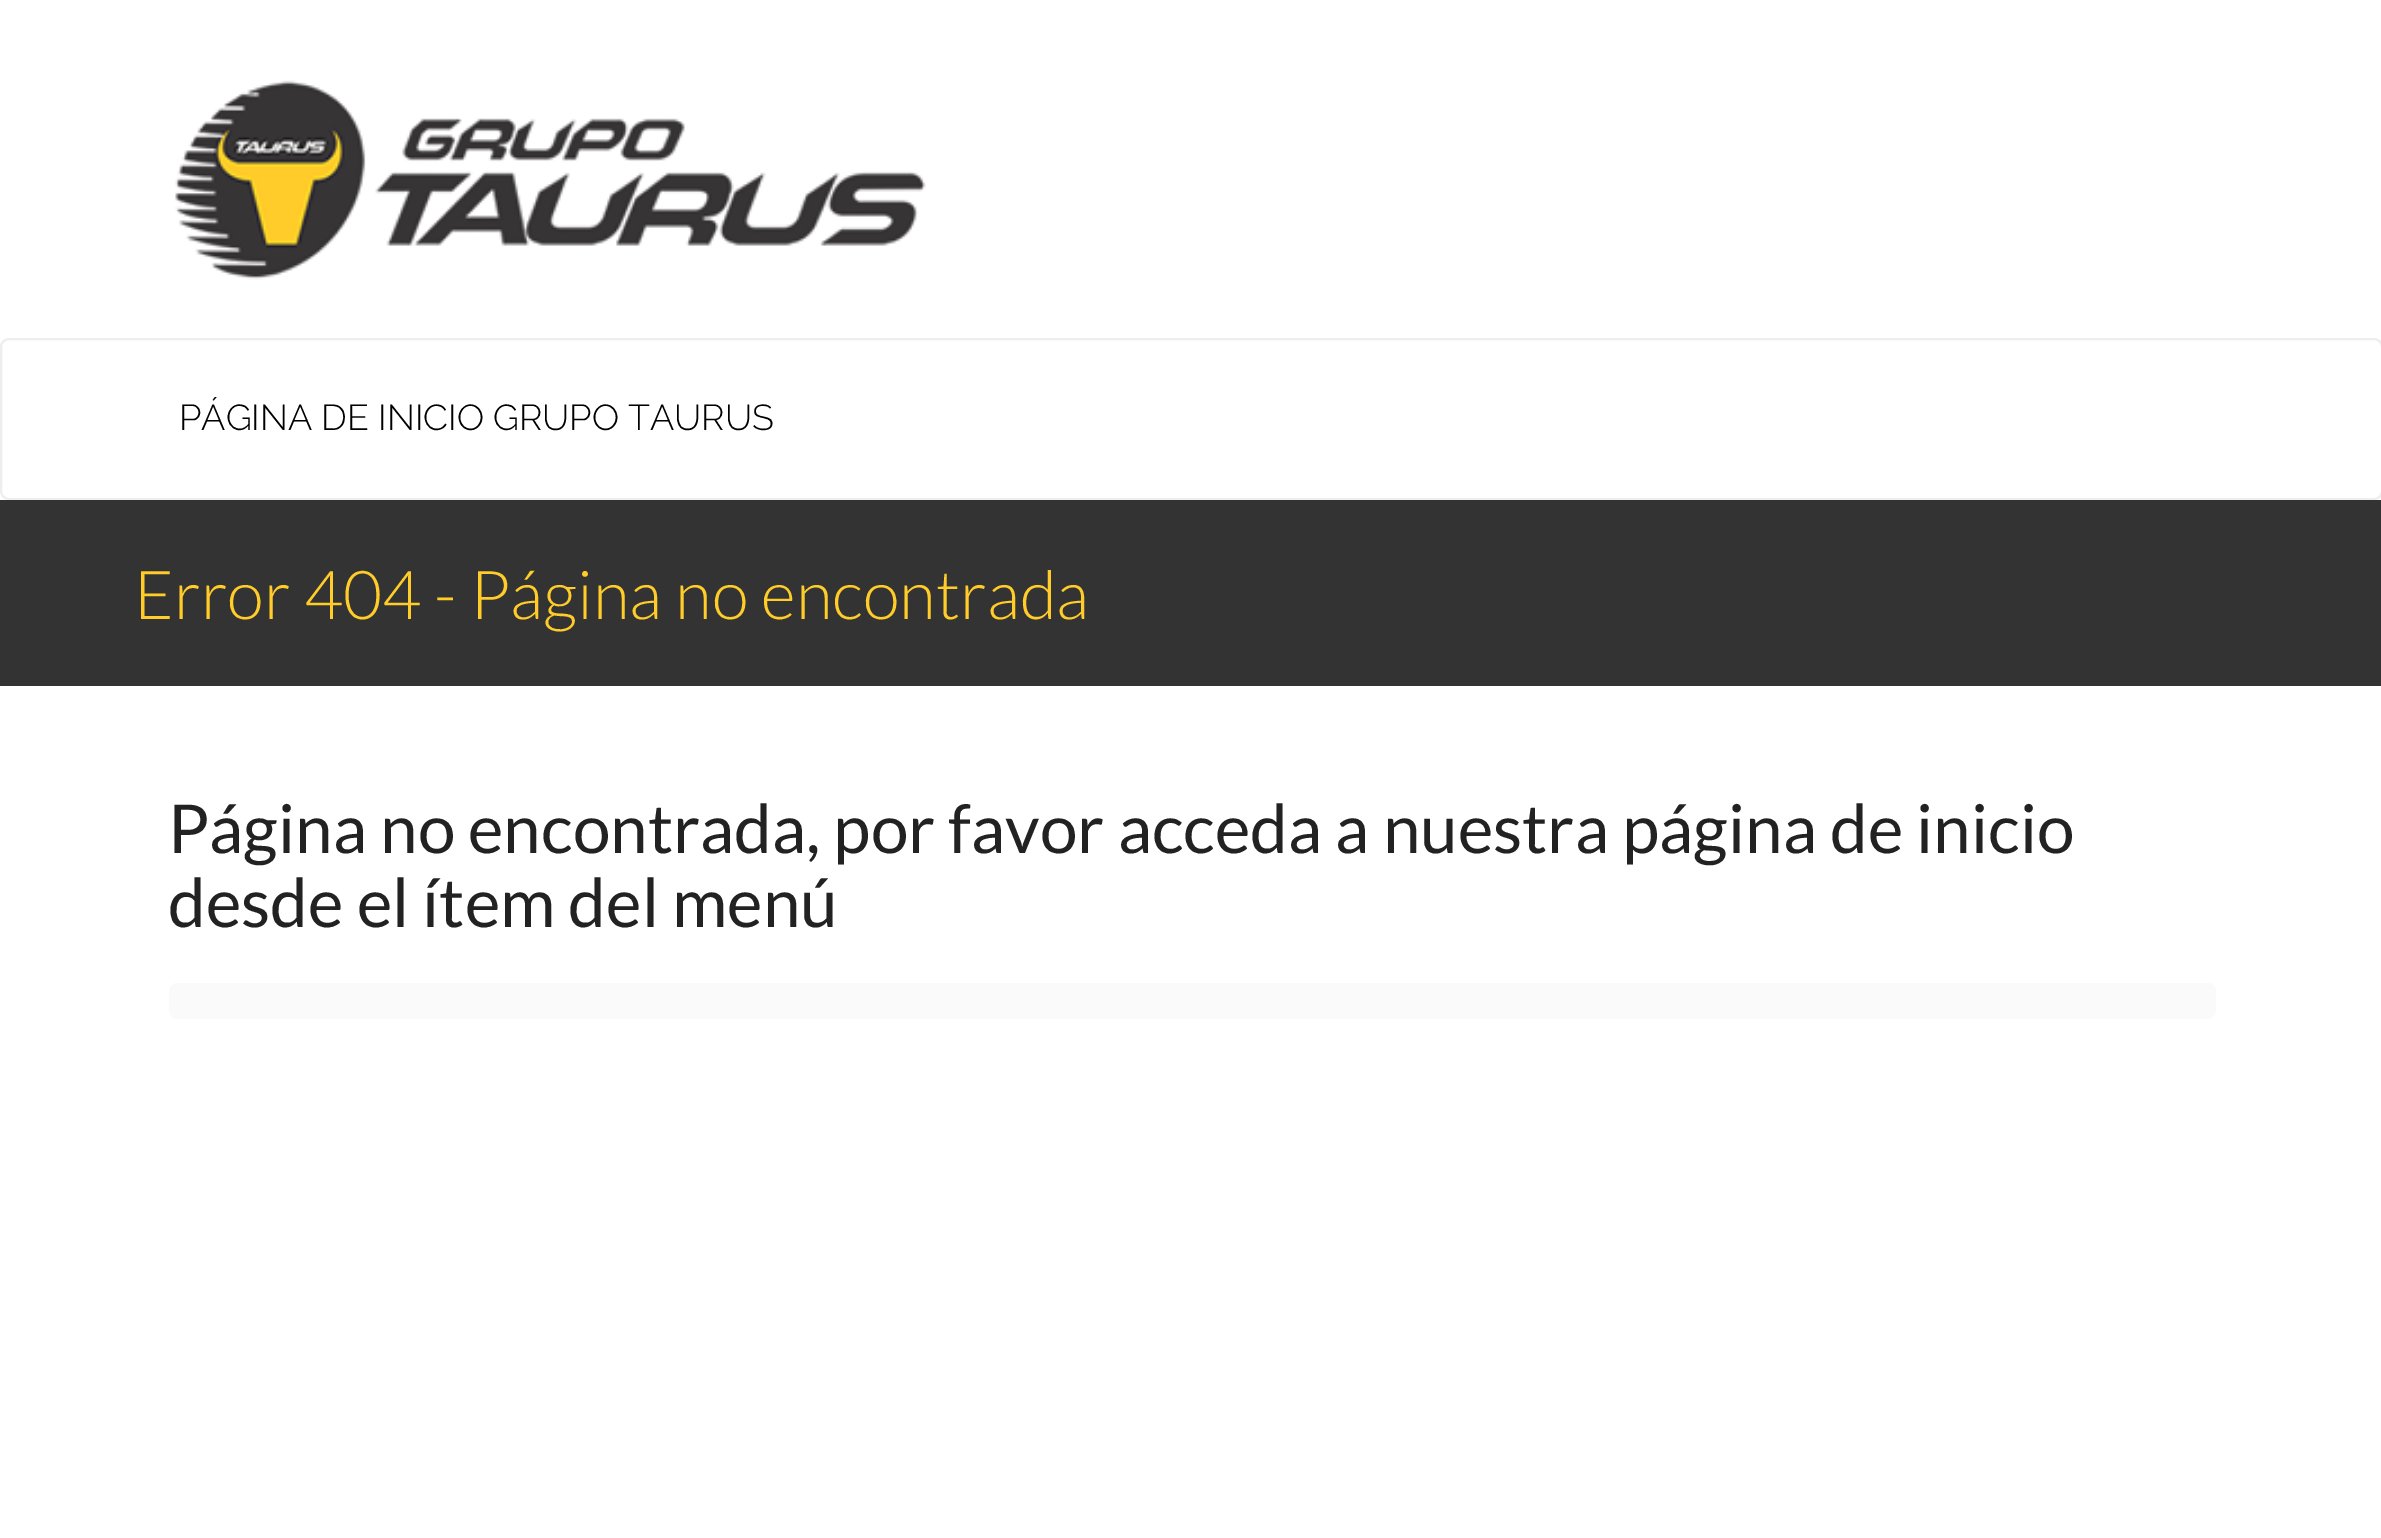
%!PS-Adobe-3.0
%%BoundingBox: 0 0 2381 1538
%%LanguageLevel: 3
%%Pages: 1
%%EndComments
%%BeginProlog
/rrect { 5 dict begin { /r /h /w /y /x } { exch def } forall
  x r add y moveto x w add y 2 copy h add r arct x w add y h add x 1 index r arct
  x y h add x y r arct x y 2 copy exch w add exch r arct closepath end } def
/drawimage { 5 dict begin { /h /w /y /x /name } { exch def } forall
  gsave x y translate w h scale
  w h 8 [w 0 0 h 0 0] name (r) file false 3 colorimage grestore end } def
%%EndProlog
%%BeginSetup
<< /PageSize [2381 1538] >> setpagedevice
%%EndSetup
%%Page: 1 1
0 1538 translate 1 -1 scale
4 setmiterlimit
1 setgray
0 0 2381 1538 rectfill
(images/1.raw) 175 80 751 200 drawimage
0.933 setgray
2 setlinewidth
1 339 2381 160 8 rrect stroke
0.2 setgray
0 500 2381 186 rectfill
0.98 setgray
169 983 2047 36 9 rrect fill
/Raleway-Light [36 0 0 -36 0 0] selectfont
0 setgray
179 430 moveto (PÁGINA DE INICIO GRUPO TAURUS) show
/Lato-Light [67.5 0 0 -67.5 0 0] selectfont
1 0.8 0.161 setrgbcolor
134 619 moveto (Error 404 - Página no encontrada) show
/Lato-Regular [67.5 0 0 -67.5 0 0] selectfont
0.133 setgray
168 853 moveto (Página no encontrada, por favor acceda a nuestra página de inicio) show
168 927 moveto (desde el ítem del menú) show
showpage
%%EOF
